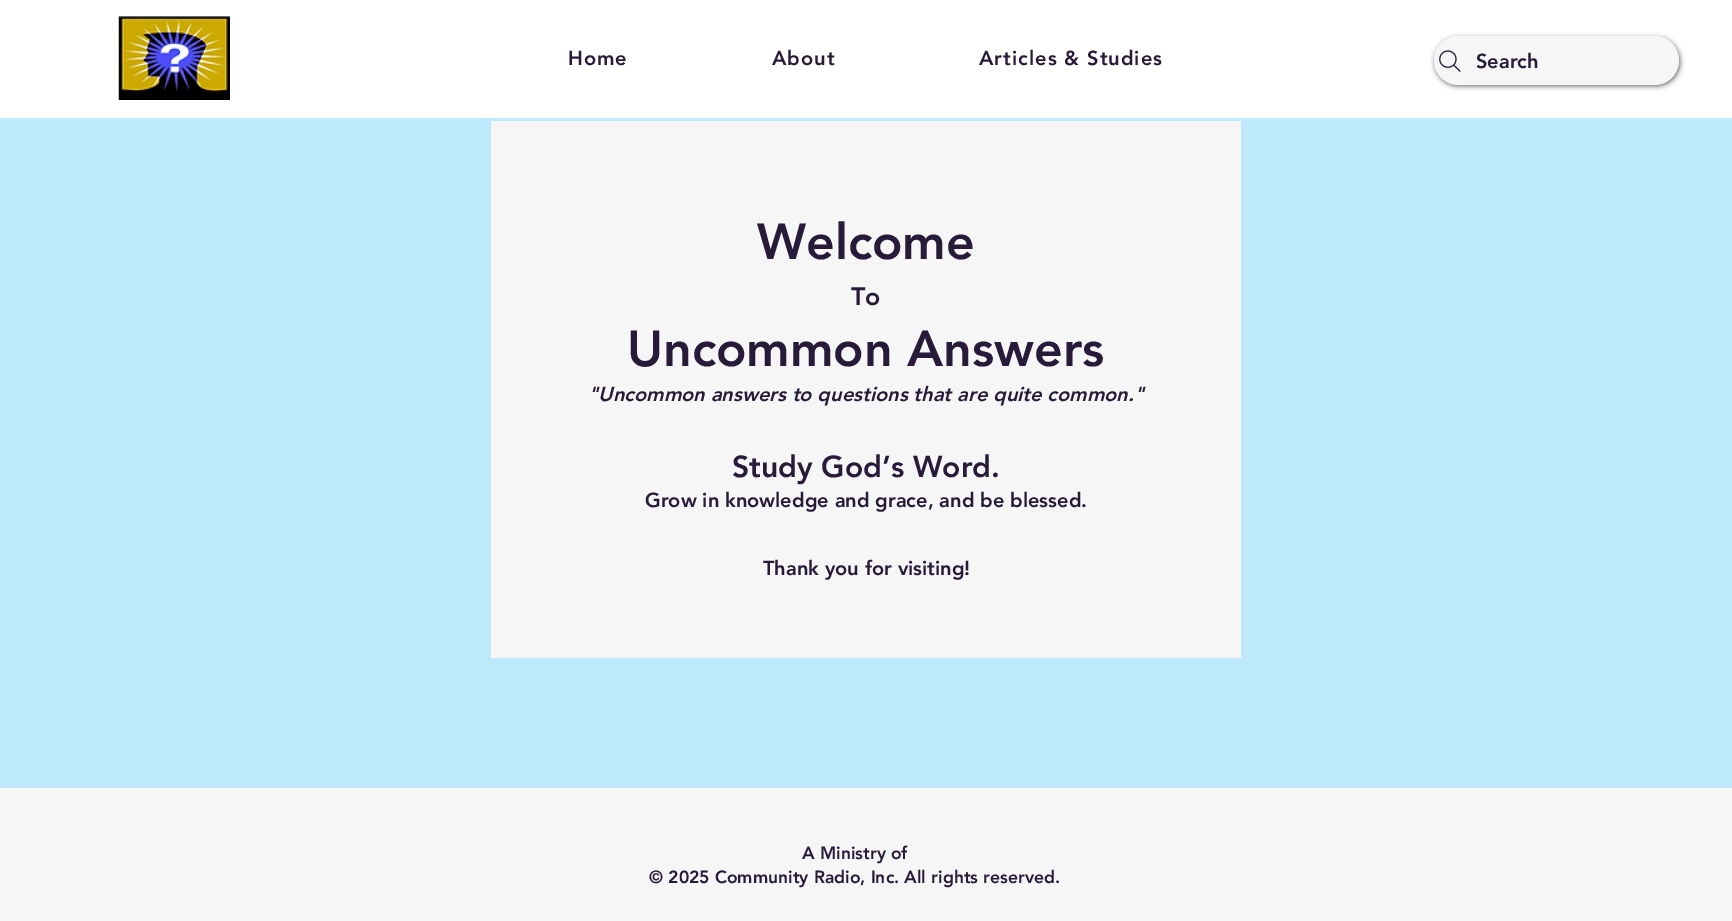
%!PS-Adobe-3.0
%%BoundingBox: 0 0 1732 921
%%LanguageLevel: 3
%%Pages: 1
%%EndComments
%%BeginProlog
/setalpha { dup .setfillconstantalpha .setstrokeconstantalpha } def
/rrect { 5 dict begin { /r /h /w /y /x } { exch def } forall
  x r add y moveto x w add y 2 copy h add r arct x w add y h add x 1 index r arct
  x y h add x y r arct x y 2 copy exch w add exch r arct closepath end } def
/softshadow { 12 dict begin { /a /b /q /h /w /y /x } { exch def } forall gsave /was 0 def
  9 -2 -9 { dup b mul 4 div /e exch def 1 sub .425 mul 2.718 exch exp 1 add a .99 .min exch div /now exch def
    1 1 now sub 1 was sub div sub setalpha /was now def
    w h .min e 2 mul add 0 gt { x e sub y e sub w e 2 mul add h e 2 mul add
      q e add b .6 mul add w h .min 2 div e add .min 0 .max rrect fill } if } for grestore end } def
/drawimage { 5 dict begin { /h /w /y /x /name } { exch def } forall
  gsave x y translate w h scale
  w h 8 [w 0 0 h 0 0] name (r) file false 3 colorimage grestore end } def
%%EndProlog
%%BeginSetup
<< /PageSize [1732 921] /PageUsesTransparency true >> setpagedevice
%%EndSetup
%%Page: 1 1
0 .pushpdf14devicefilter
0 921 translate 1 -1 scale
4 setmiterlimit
0.965 setgray
0 0 1732 921 rectfill
1 setgray
0 0 1732 118 rectfill
(images/1.raw) 118 16 112 84 drawimage
0 setgray
1435 38 245 48 24 2.5 0.6 softshadow
0.965 setgray
1434 36 245 49 24.5 rrect fill
(images/2.raw) 1439 50 22 22 drawimage
0.741 0.914 0.984 setrgbcolor
0 118 1732 670 rectfill
0.965 setgray
491 121 750 537 rectfill
/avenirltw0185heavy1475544-Black [20 0 0 -20 0 0] selectfont
0.157 0.102 0.224 setrgbcolor
568 65 moveto 1 0 (Home) ashow
772 65 moveto 1 0 (About) ashow
979 65 moveto 1 0 (Articles & Studies) ashow
1476 68 moveto (Search) show
/avenirltw0185heavy1475544-Black [50 0 0 -50 0 0] selectfont
757 259 moveto (Welcome) show
/avenirltw0185heavy1475544-Black [25 0 0 -25 0 0] selectfont
851 305 moveto (To) show
/avenirltw0185heavy1475544-Black [50 0 0 -50 0 0] selectfont
627 366 moveto (Uncommon Answers) show
/avenirltw0185heavy1475544-BlackItalic [20 0 0 -20 0 0] selectfont
588 401 moveto ("Uncommon answers to questions that are quite common.") show
/avenirltw0185heavy1475544-Black [30 0 0 -30 0 0] selectfont
732 477 moveto (Study God’s Word.) show
/avenirltw0185heavy1475544-Black [20 0 0 -20 0 0] selectfont
645 507 moveto (Grow in knowledge and grace, and be blessed.) show
763 575 moveto (Thank you for visiting!) show
/avenirltw0185heavy1475544-Black [17.5 0 0 -17.5 0 0] selectfont
802 859 moveto (A Ministry of) show
649 883 moveto (© 2025 Community Radio, Inc. All rights reserved.) show
.poppdf14devicefilter showpage
%%EOF
